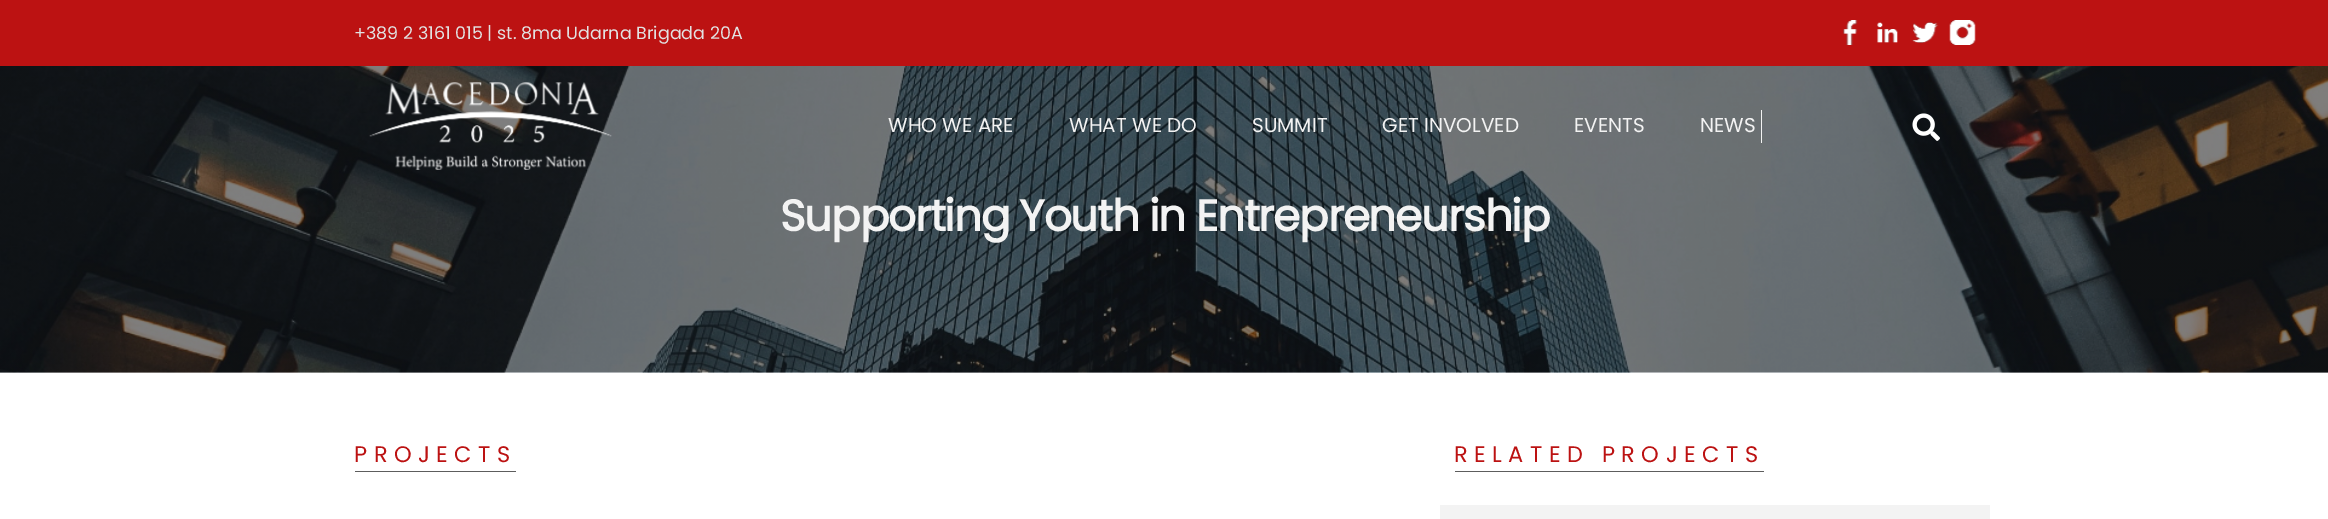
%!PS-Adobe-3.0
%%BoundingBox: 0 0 2328 519
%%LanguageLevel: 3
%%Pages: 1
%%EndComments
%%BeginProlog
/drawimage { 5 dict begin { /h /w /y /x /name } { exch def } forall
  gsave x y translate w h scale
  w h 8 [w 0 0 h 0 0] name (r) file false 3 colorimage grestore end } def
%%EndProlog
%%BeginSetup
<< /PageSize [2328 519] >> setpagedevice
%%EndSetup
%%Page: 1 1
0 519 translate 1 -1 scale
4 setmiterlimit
1 setgray
0 0 2328 519 rectfill
0.737 0.071 0.071 setrgbcolor
0 0 2328 66 rectfill
(images/1.raw) 1843 20 15 25 drawimage
(images/2.raw) 1877 22 21 21 drawimage
(images/3.raw) 1912 22 27 21 drawimage
(images/4.raw) 1949 20 27 25 drawimage
(images/7.raw) 0 66 2328 307 drawimage
(images/5.raw) 369 82 243 88 drawimage
0.953 setgray
1761 110 1 33 rectfill
(images/6.raw) 1912 113 28 28 drawimage
0.365 setgray
355 471 161 1 rectfill
1455 471 309 1 rectfill
0.953 setgray
1440 505 550 14 rectfill
/Poppins-Regular [17.5 0 0 -17.5 0 0] selectfont
0.886 setgray
354 39 moveto (+389 2 3161 015 | st. 8ma Udarna Brigada 20A) show
/Poppins-Regular [20 0 0 -20 0 0] selectfont
0.953 setgray
888 132 moveto (WHO WE ARE) show
1069 132 moveto (WHAT WE DO) show
1252 132 moveto (SUMMIT) show
1382 132 moveto (GET INVOLVED) show
1574 132 moveto (EVENTS) show
1700 132 moveto (NEWS) show
/Poppins-Bold [43.75 0 0 -43.75 0 0] selectfont
780 231 moveto -1.25 0 (Supporting Youth in Entrepreneurship) ashow
/Poppins-Regular [22.5 0 0 -22.5 0 0] selectfont
0.737 0.071 0.071 setrgbcolor
354 462 moveto 6.5 0 (PROJECTS) ashow
1454 462 moveto 6.5 0 (RELATED PROJECTS) ashow
showpage
%%EOF
